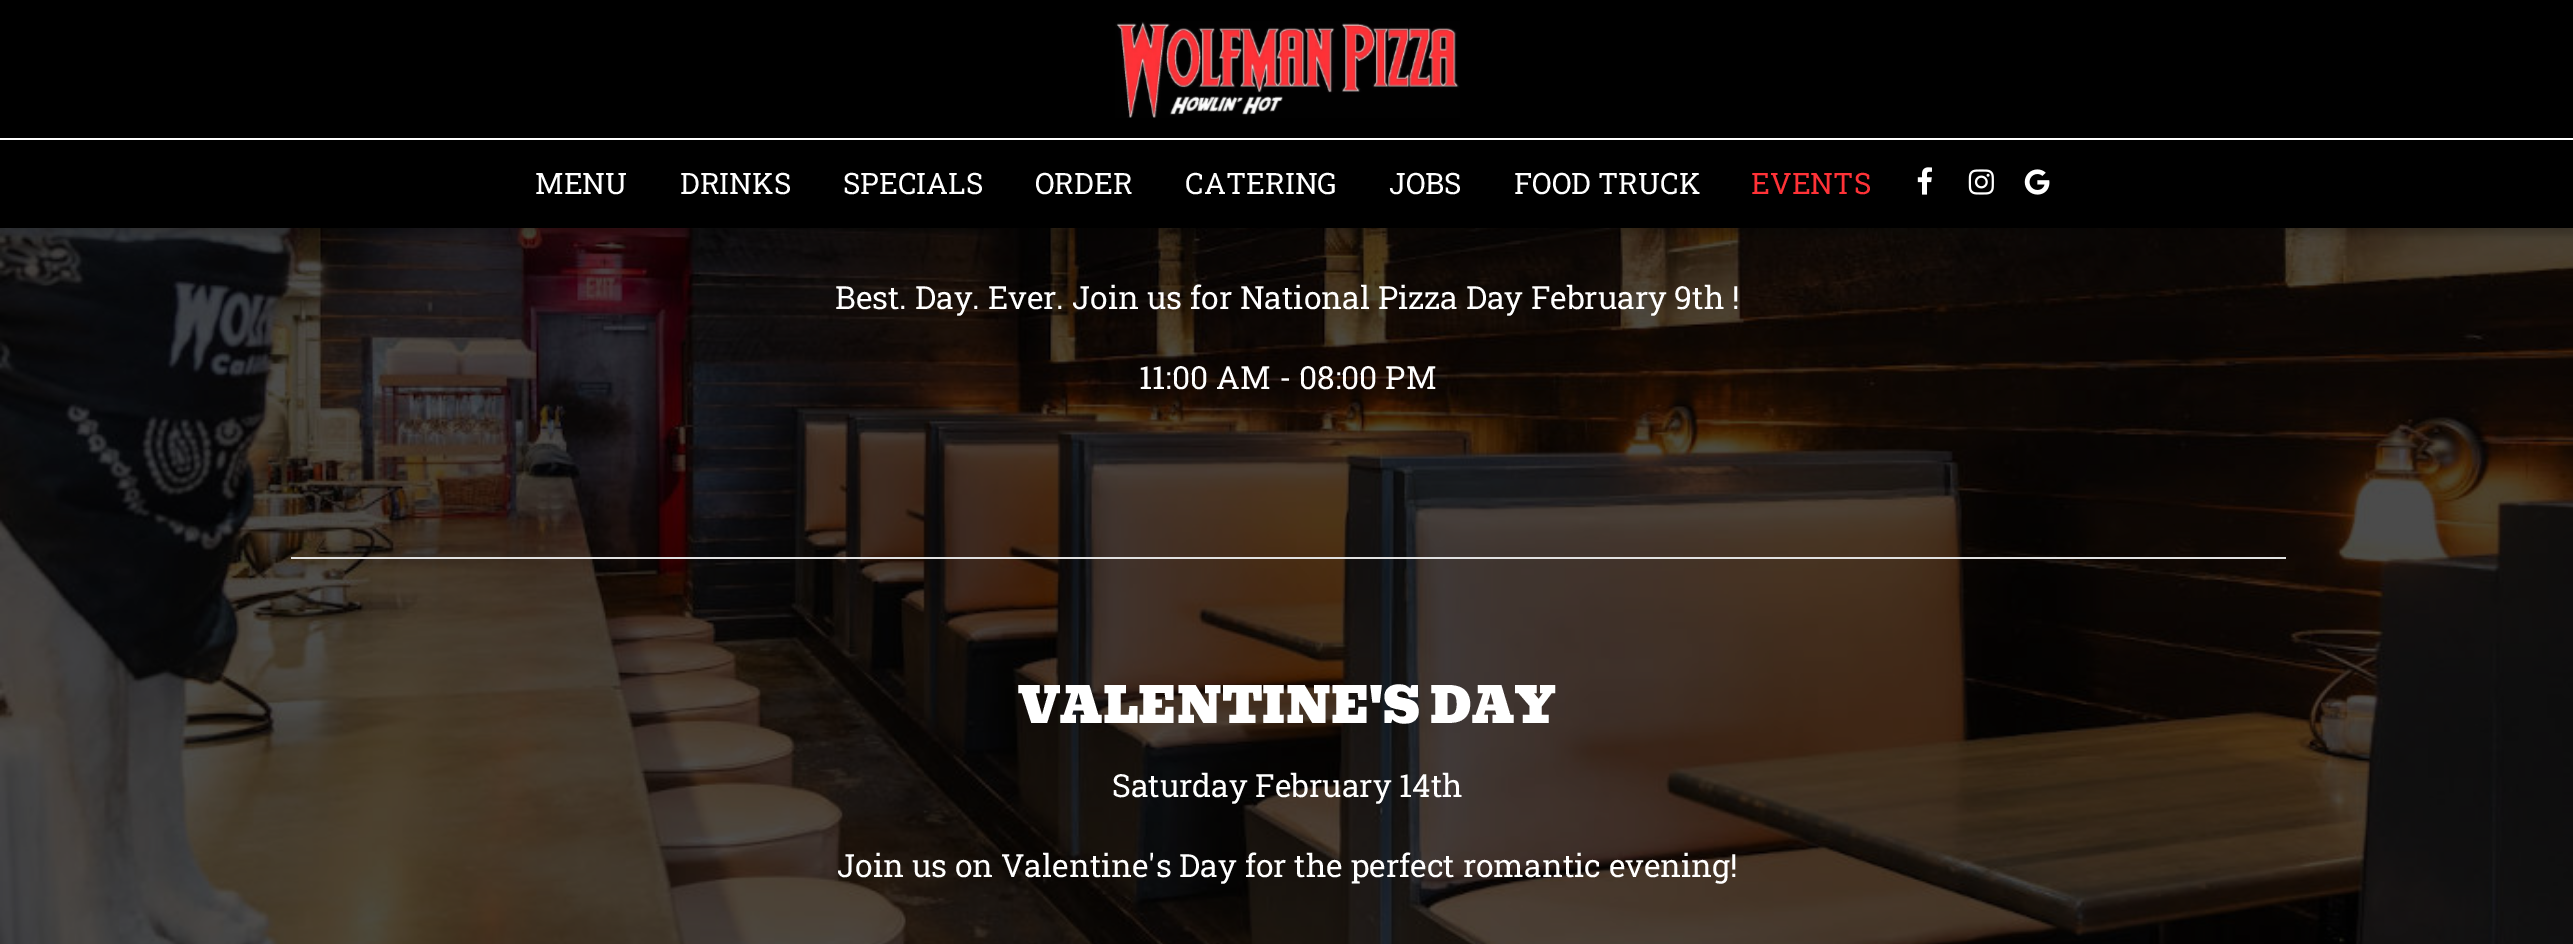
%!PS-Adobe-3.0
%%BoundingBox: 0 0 2573 944
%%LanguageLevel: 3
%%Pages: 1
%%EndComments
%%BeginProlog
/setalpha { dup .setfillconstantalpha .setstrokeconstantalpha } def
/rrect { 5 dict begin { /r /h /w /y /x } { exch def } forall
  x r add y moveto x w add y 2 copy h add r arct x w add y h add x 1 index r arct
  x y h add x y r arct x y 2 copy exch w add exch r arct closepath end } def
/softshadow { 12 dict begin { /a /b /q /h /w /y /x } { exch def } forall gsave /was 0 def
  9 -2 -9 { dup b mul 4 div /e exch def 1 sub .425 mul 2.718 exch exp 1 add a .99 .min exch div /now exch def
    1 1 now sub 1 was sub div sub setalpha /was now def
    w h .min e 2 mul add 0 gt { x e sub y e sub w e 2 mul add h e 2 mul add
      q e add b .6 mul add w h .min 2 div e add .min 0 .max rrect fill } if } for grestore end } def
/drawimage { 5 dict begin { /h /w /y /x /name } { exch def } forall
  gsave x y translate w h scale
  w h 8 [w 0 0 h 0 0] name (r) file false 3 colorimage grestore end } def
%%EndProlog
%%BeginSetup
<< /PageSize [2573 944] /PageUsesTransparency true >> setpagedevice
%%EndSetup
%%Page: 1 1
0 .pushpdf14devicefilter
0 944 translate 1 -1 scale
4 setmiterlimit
1 setgray
0 0 2573 944 rectfill
(images/1.raw) 0 228 2573 716 drawimage
0 setgray
0 0 2573 138 rectfill
(images/2.raw) 1115 21 345 97 drawimage
0 147 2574 88 0 3.5 0.2 softshadow
0 140 2573 88 rectfill
(images/3.raw) 1917 167 15 28 drawimage
(images/4.raw) 1968 169 26 26 drawimage
(images/5.raw) 2024 169 26 26 drawimage
0.886 setgray
291 557 1995 2 rectfill
/RobotoSlab-Regular [29.5 0 0 -29.5 0 0] selectfont
1 setgray
535 194 moveto (MENU) show
680 194 moveto (DRINKS) show
843 194 moveto (SPECIALS) show
1035 194 moveto (ORDER) show
1185 194 moveto (CATERING) show
1389 194 moveto (JOBS) show
1514 194 moveto (FOOD TRUCK) show
1 0.196 0.216 setrgbcolor
1751 194 moveto (EVENTS) show
/RobotoSlab-Regular [31.85 0 0 -31.85 0 0] selectfont
1 setgray
835 309 moveto (Best. Day. Ever. Join us for National Pizza Day February 9th !) show
1139 389 moveto (11:00 AM - 08:00 PM) show
/Bevan-Regular [49 0 0 -49 0 0] selectfont
1018 723 moveto (VALENTINE'S DAY) show
/RobotoSlab-Regular [31.85 0 0 -31.85 0 0] selectfont
1112 797 moveto (Saturday February 14th) show
837 877 moveto (Join us on Valentine's Day for the perfect romantic evening!) show
.poppdf14devicefilter showpage
%%EOF
